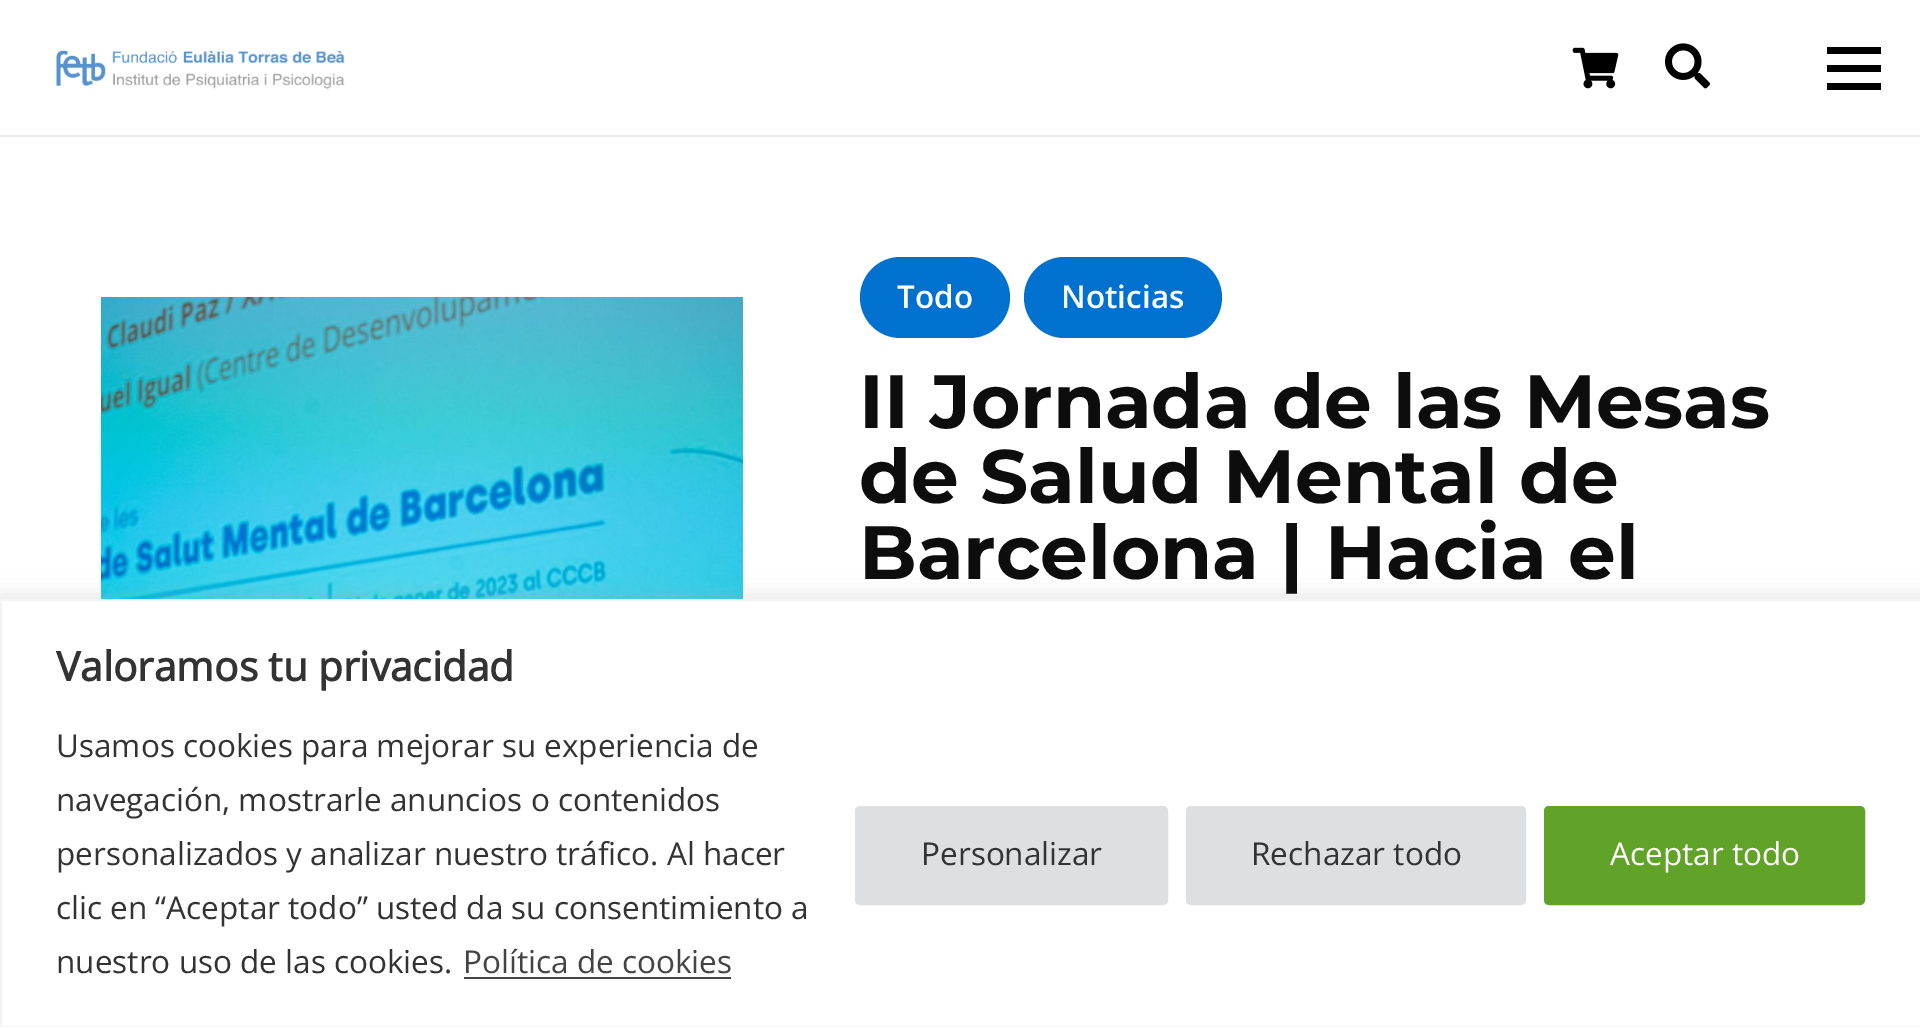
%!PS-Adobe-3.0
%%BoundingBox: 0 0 1920 1027
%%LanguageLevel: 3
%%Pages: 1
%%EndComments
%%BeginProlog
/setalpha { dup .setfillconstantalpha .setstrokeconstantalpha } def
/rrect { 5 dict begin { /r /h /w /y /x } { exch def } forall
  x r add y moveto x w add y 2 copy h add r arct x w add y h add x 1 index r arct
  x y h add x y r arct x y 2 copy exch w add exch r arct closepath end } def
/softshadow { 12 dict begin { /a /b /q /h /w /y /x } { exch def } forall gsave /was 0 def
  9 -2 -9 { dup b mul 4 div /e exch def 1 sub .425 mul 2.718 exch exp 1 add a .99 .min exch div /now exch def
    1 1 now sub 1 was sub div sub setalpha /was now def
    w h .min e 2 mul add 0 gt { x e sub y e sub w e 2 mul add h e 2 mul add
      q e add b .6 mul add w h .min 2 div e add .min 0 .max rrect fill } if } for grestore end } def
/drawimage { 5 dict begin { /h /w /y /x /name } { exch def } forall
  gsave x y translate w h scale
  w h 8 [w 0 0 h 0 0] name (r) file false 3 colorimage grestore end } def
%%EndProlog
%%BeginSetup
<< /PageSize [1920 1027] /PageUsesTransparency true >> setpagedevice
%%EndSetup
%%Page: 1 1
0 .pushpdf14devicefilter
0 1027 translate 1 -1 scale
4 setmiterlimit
1 setgray
0 0 1920 1027 rectfill
0.922 setgray
newpath 0 135 moveto 0 137 lineto 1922 137 lineto 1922 2 lineto 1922 135 lineto closepath fill
(images/1.raw) 56 50 289 39 drawimage
(images/2.raw) 1572 47 47 42 drawimage
(images/3.raw) 1665 43 45 46 drawimage
0 setgray
1827 65 54 7 rectfill
1827 47 54 7 rectfill
1827 83 54 7 rectfill
(images/4.raw) 101 297 642 302 drawimage
0 0.443 0.808 setrgbcolor
860 257 150 81 40.5 rrect fill
1024 257 198 81 40.5 rrect fill
0.675 0.671 0.671 setrgbcolor
0 596 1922 430 0 11 0.3 softshadow
1 setgray
newpath 1 600 moveto 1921 600 lineto 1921 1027 lineto 1 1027 lineto closepath gsave fill grestore
0.957 setgray
2 setlinewidth
stroke
0.267 setgray
464 977 267 2 rectfill
0.871 0.875 0.878 setrgbcolor
857.5 808.5 308 94 2.5 rrect gsave fill grestore
5 setlinewidth
stroke
1188.5 808.5 335 94 2.5 rrect gsave fill grestore
stroke
0.38 0.635 0.161 setrgbcolor
1546.5 808.5 316 94 2.5 rrect gsave fill grestore
stroke
/OpenSans-SemiBold [31.5 0 0 -31.5 0 0] selectfont
1 setgray
897 308 moveto (Todo) show
1061 308 moveto (Noticias) show
/Montserrat-Bold [75.5 0 0 -75.5 0 0] selectfont
0.051 setgray
859 428 moveto (II Jornada de las Mesas) show
859 503 moveto (de Salud Mental de) show
859 579 moveto (Barcelona | Hacia el) show
/OpenSans-Bold [40.5 0 0 -40.5 0 0] selectfont
0.2 setgray
56 681 moveto (Valoramos tu privacidad) show
/OpenSans-Regular [31.5 0 0 -31.5 0 0] selectfont
56 757 moveto (Usamos cookies para mejorar su experiencia de) show
56 811 moveto (navegación, mostrarle anuncios o contenidos) show
56 865 moveto (personalizados y analizar nuestro tráfico. Al hacer) show
56 919 moveto (clic en “Aceptar todo” usted da su consentimiento a) show
56 973 moveto (nuestro uso de las cookies.) show
0.267 setgray
463 973 moveto (Política de cookies) show
0.2 setgray
921 865 moveto (Personalizar) show
1251 865 moveto (Rechazar todo) show
1 setgray
1610 865 moveto (Aceptar todo) show
.poppdf14devicefilter showpage
%%EOF
